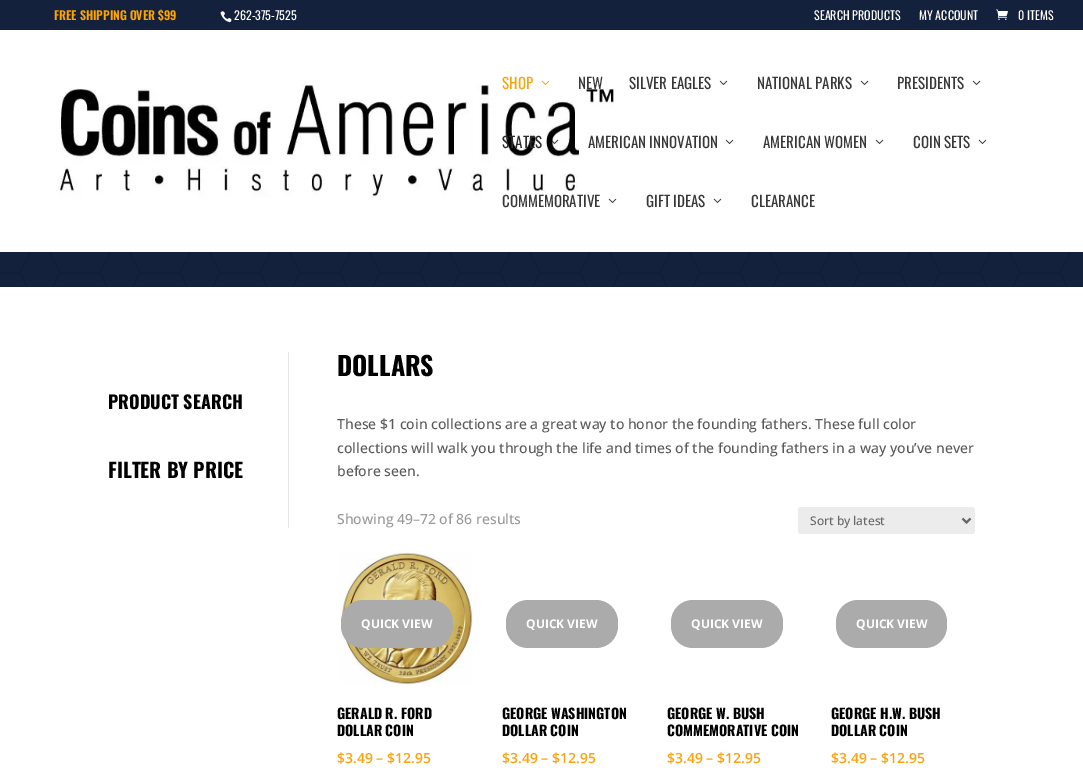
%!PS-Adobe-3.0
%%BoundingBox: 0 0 1083 772
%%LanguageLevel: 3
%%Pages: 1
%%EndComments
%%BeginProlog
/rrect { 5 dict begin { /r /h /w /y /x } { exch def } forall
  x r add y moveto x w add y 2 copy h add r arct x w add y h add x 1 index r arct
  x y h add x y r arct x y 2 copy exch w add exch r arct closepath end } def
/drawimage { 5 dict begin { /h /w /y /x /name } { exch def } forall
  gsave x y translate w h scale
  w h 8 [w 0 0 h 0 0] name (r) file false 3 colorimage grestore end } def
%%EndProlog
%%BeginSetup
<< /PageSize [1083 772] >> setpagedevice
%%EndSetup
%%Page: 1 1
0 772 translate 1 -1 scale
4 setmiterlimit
1 setgray
0 0 1083 772 rectfill
0.078 0.129 0.239 setrgbcolor
0 0 1083 30 rectfill
(images/1.raw) 220 11 12 12 drawimage
(images/2.raw) 996 9 12 11 drawimage
(images/3.raw) 58 85 556 113 drawimage
(images/4.raw) 541 80 9 5 drawimage
(images/5.raw) 719 80 9 5 drawimage
(images/5.raw) 860 80 9 5 drawimage
(images/5.raw) 972 80 9 5 drawimage
(images/6.raw) 552 139 7 5 drawimage
(images/5.raw) 725 139 9 5 drawimage
(images/5.raw) 875 139 9 5 drawimage
(images/5.raw) 978 139 9 5 drawimage
(images/5.raw) 608 198 9 5 drawimage
(images/5.raw) 713 198 9 5 drawimage
0 252 1083 35 rectfill
(images/7.raw) 0 252 1072 35 drawimage
0.902 setgray
288 352 1 176 rectfill
0.925 setgray
798 507 177 27 3 rrect fill
0.4 setgray
2 setlinewidth
newpath 962.5 518.5 moveto 966.5 522.5 lineto 970.5 518.5 lineto stroke
(images/8.raw) 340 550 133 135 drawimage
0.671 setgray
341 600 112 48 22 rrect fill
506 600 112 48 22 rrect fill
671 600 112 48 22 rrect fill
836 600 111 48 22 rrect fill
/Oswald-SemiBold [12 0 0 -12 0 0] selectfont
1 0.647 0 setrgbcolor
54 20 moveto (FREE SHIPPING OVER $99) show
/Oswald-Regular [12 0 0 -12 0 0] selectfont
1 setgray
234 20 moveto (262-375-7525) show
814 20 moveto (SEARCH PRODUCTS) show
919 20 moveto (MY ACCOUNT) show
1018 20 moveto (0 ITEMS) show
/Oswald-Regular [15 0 0 -15 0 0] selectfont
0.988 0.639 0.067 setrgbcolor
502 89 moveto (SHOP) show
0.22 setgray
578 89 moveto (NEW) show
629 89 moveto (SILVER EAGLES) show
757 89 moveto (NATIONAL PARKS) show
897 89 moveto (PRESIDENTS) show
0.165 setgray
502 148 moveto (STATES) show
0.22 setgray
588 148 moveto (AMERICAN INNOVATION) show
763 148 moveto (AMERICAN WOMEN) show
913 148 moveto (COIN SETS) show
502 207 moveto (COMMEMORATIVE) show
646 207 moveto (GIFT IDEAS) show
751 207 moveto (CLEARANCE) show
/Oswald-Bold [18 0 0 -18 0 0] selectfont
0 setgray
108 409 moveto (PRODUCT SEARCH) show
/Oswald-Bold [20 0 0 -20 0 0] selectfont
108 478 moveto (FILTER BY PRICE) show
/Oswald-Bold [26 0 0 -26 0 0] selectfont
337 376 moveto (DOLLARS) show
/OpenSans-Medium [14 0 0 -14 0 0] selectfont
0.349 setgray
337 429 moveto (These $1 coin collections are a great way to honor the founding fathers. These full color) show
337 453 moveto (collections will walk you through the life and times of the founding fathers in a way you’ve never) show
337 476 moveto (before seen.) show
0.6 setgray
337 524 moveto (Showing 49–72 of 86 results) show
/OpenSans-Medium [12 0 0 -12 0 0] selectfont
0.4 setgray
810 525 moveto (Sort by latest) show
/OpenSans-Bold [12 0 0 -12 0 0] selectfont
1 setgray
361 628 moveto (QUICK VIEW) show
/Oswald-Bold [14 0 0 -14 0 0] selectfont
0 setgray
337 719 moveto (GERALD R. FORD) show
337 736 moveto (DOLLAR COIN) show
/OpenSans-SemiBold [14 0 0 -14 0 0] selectfont
0.988 0.639 0.067 setrgbcolor
337 763 moveto ($3.49 – $12.95) show
/OpenSans-Bold [12 0 0 -12 0 0] selectfont
1 setgray
526 628 moveto (QUICK VIEW) show
/Oswald-Bold [14 0 0 -14 0 0] selectfont
0 setgray
502 719 moveto (GEORGE WASHINGTON) show
502 736 moveto (DOLLAR COIN) show
/OpenSans-SemiBold [14 0 0 -14 0 0] selectfont
0.988 0.639 0.067 setrgbcolor
502 763 moveto ($3.49 – $12.95) show
/OpenSans-Bold [12 0 0 -12 0 0] selectfont
1 setgray
691 628 moveto (QUICK VIEW) show
/Oswald-Bold [14 0 0 -14 0 0] selectfont
0 setgray
667 719 moveto (GEORGE W. BUSH) show
667 736 moveto (COMMEMORATIVE COIN) show
/OpenSans-SemiBold [14 0 0 -14 0 0] selectfont
0.988 0.639 0.067 setrgbcolor
667 763 moveto ($3.49 – $12.95) show
/OpenSans-Bold [12 0 0 -12 0 0] selectfont
1 setgray
856 628 moveto (QUICK VIEW) show
/Oswald-Bold [14 0 0 -14 0 0] selectfont
0 setgray
831 719 moveto (GEORGE H.W. BUSH) show
831 736 moveto (DOLLAR COIN) show
/OpenSans-SemiBold [14 0 0 -14 0 0] selectfont
0.988 0.639 0.067 setrgbcolor
831 763 moveto ($3.49 – $12.95) show
showpage
%%EOF
